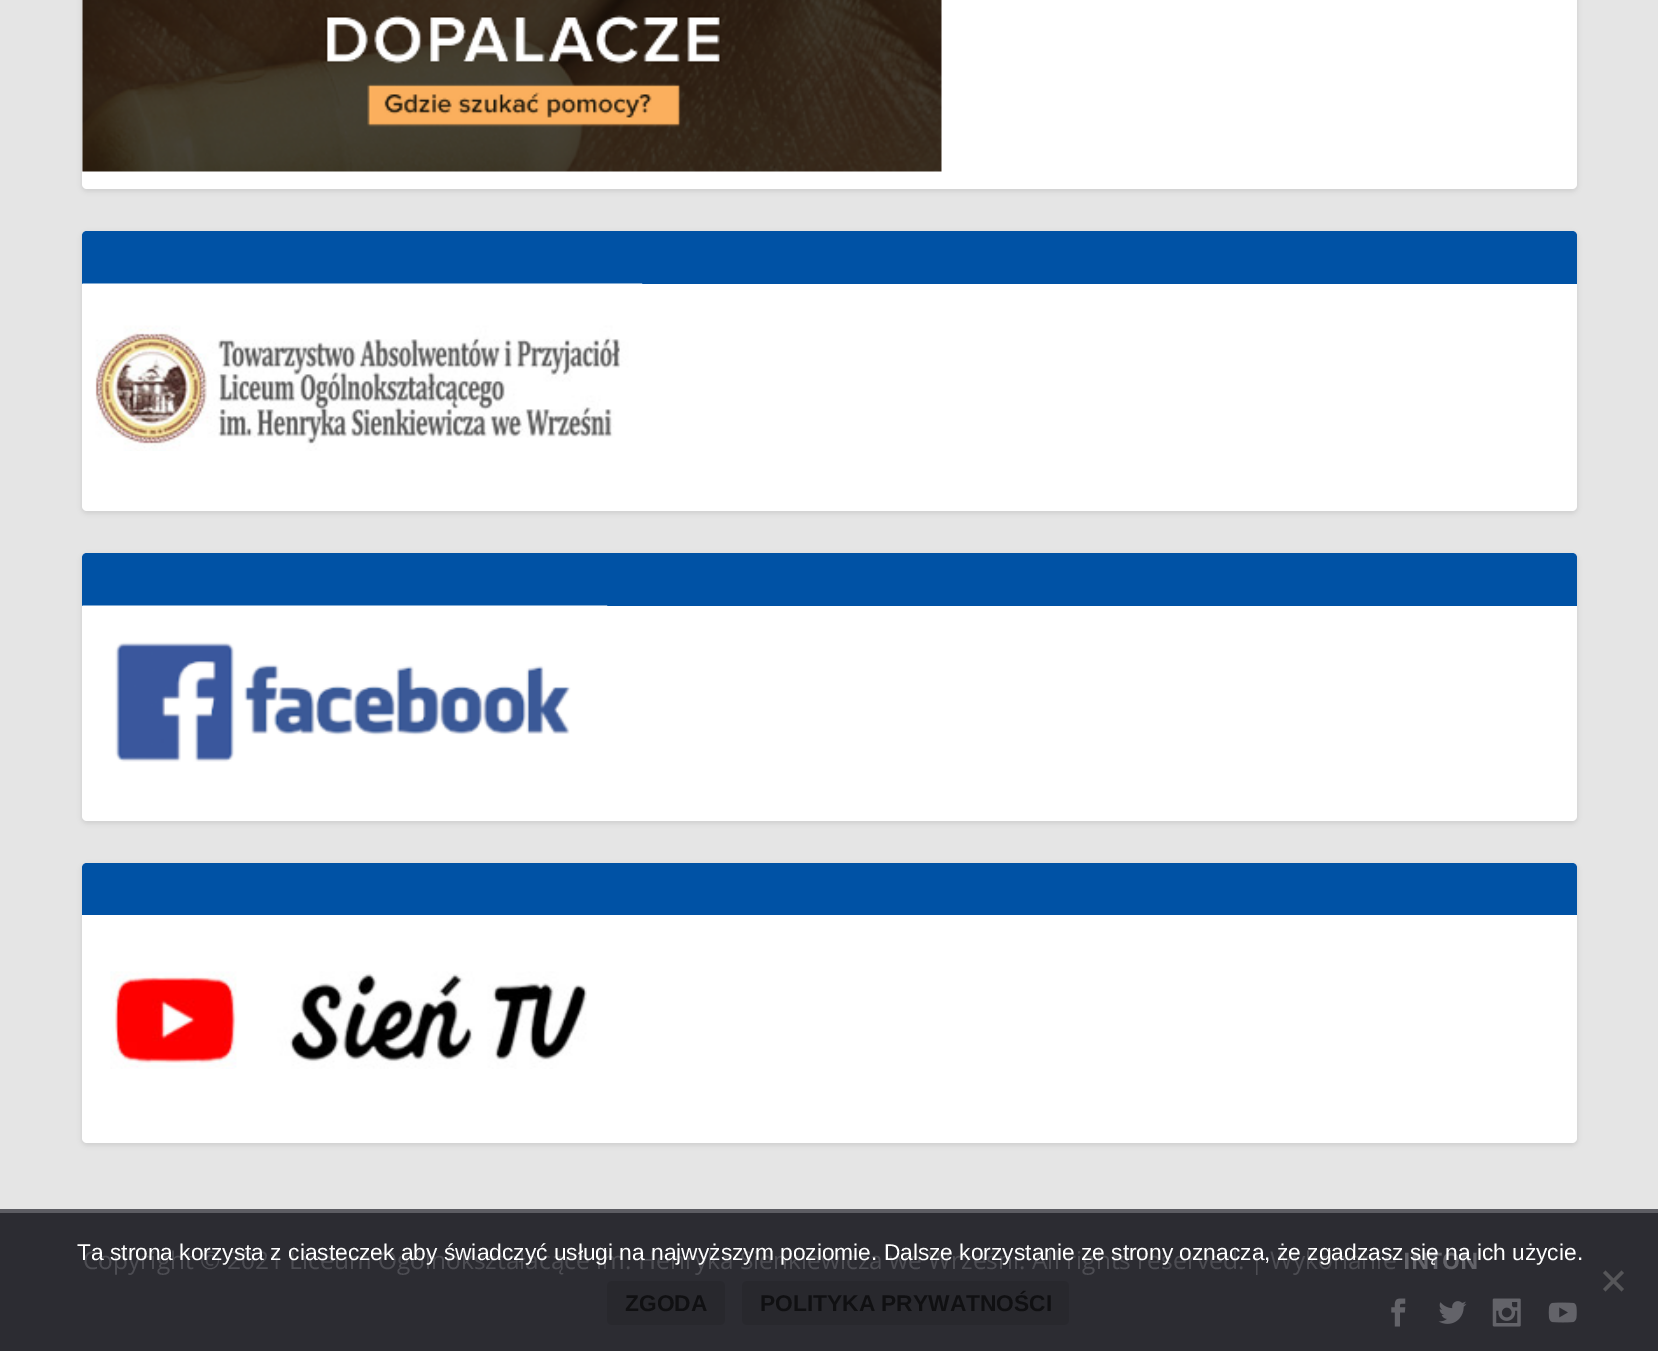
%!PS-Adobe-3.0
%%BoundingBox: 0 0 1658 1351
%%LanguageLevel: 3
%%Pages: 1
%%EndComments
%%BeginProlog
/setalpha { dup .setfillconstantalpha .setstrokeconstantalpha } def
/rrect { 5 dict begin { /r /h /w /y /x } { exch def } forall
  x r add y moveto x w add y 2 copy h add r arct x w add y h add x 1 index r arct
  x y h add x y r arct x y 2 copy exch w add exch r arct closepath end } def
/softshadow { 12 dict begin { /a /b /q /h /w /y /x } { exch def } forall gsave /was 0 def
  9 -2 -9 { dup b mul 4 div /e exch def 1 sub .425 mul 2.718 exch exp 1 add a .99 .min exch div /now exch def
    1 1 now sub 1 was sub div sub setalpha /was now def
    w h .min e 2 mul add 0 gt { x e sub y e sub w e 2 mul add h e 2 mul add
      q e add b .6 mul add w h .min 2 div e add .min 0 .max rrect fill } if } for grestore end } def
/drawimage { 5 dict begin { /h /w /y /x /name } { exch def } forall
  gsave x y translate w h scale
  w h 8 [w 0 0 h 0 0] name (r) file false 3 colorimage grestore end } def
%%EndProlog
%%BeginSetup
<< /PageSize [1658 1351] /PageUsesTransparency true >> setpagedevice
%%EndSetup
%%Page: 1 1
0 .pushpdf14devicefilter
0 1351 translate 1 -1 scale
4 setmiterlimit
0.898 setgray
0 0 1658 1351 rectfill
0.173 0.173 0.196 setrgbcolor
0 1213 1658 138 rectfill
0.337 0.337 0.349 setrgbcolor
newpath 1621.5 1270.5 moveto 1624 1273 lineto 1605.5 1291.5 lineto 1603 1289 lineto closepath fill
newpath 1603 1273 moveto 1605.5 1270.5 lineto 1624 1289 lineto 1621.5 1291.5 lineto closepath fill
0.157 0.157 0.176 setrgbcolor
607 1281 118 44 5 rrect fill
742 1281 327 44 5 rrect fill
0.365 0.365 0.388 setrgbcolor
0 1209 1658 4 rectfill
0 setgray
82 -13 1495 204 5 2.5 0.1 softshadow
1 setgray
82 -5 1495 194 5 rrect fill
(images/1.raw) 82 0 860 172 drawimage
0 setgray
82 233 1495 280 5 2.5 0.1 softshadow
1 setgray
82 231 1495 280 5 rrect fill
0 0.322 0.647 setrgbcolor
newpath 87 231 moveto 1572 231 lineto 1575 231 1577 233 1577 236 curveto 1577 284 lineto 82 284 lineto 82 236 lineto 82 233 84 231 87 231 curveto closepath fill
(images/2.raw) 82 283 561 168 drawimage
0 setgray
82 555 1495 268 5 2.5 0.1 softshadow
1 setgray
82 553 1495 268 5 rrect fill
0 0.322 0.647 setrgbcolor
newpath 87 553 moveto 1572 553 lineto 1575 553 1577 555 1577 558 curveto 1577 606 lineto 82 606 lineto 82 558 lineto 82 555 84 553 87 553 curveto closepath fill
(images/3.raw) 82 605 526 157 drawimage
0 setgray
82 865 1495 280 5 2.5 0.1 softshadow
1 setgray
82 863 1495 280 5 rrect fill
0 0.322 0.647 setrgbcolor
newpath 87 863 moveto 1572 863 lineto 1575 863 1577 865 1577 868 curveto 1577 915 lineto 82 915 lineto 82 868 lineto 82 865 84 863 87 863 curveto closepath fill
(images/4.raw) 110 971 477 98 drawimage
(images/5.raw) 1391 1298 15 29 drawimage
(images/6.raw) 1438 1301 29 23 drawimage
(images/7.raw) 1492 1298 29 29 drawimage
(images/8.raw) 1548 1302 29 21 drawimage
/LiberationSans-Bold [22.75 0 0 -22.75 0 0] selectfont
0.063 0.063 0.071 setrgbcolor
625 1311 moveto (ZGODA) show
760 1311 moveto (POLITYKA PRYWATNOŚCI) show
/OpenSans-Regular [24.5 0 0 -24.5 0 0] selectfont
0.302 0.302 0.325 setrgbcolor
83 1269 moveto (Copyright © 2021 Liceum Ogólnokształacące im. Henryka Sienkiewicza we Wrześni. All rights reserved. | Wykonanie) show
/OpenSans-Bold [22.75 0 0 -22.75 0 0] selectfont
0.388 0.388 0.412 setrgbcolor
1403 1269 moveto (INTON) show
/LiberationSans-Regular [22.75 0 0 -22.75 0 0] selectfont
1 setgray
77 1260 moveto (Ta strona korzysta z ciasteczek aby świadczyć usługi na najwyższym poziomie. Dalsze korzystanie ze strony oznacza, że zgadzasz się na ich użycie.) show
.poppdf14devicefilter showpage
%%EOF
